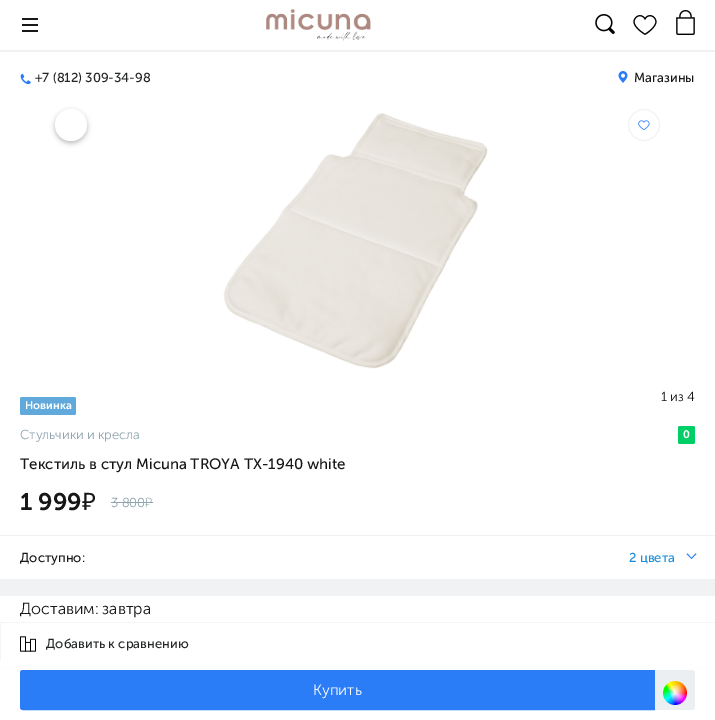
%!PS-Adobe-3.0
%%BoundingBox: 0 0 715 720
%%LanguageLevel: 3
%%Pages: 1
%%EndComments
%%BeginProlog
/setalpha { dup .setfillconstantalpha .setstrokeconstantalpha } def
/rrect { 5 dict begin { /r /h /w /y /x } { exch def } forall
  x r add y moveto x w add y 2 copy h add r arct x w add y h add x 1 index r arct
  x y h add x y r arct x y 2 copy exch w add exch r arct closepath end } def
/softshadow { 12 dict begin { /a /b /q /h /w /y /x } { exch def } forall gsave /was 0 def
  9 -2 -9 { dup b mul 4 div /e exch def 1 sub .425 mul 2.718 exch exp 1 add a .99 .min exch div /now exch def
    1 1 now sub 1 was sub div sub setalpha /was now def
    w h .min e 2 mul add 0 gt { x e sub y e sub w e 2 mul add h e 2 mul add
      q e add b .6 mul add w h .min 2 div e add .min 0 .max rrect fill } if } for grestore end } def
/drawimage { 5 dict begin { /h /w /y /x /name } { exch def } forall
  gsave x y translate w h scale
  w h 8 [w 0 0 h 0 0] name (r) file false 3 colorimage grestore end } def
%%EndProlog
%%BeginSetup
<< /PageSize [715 720] /PageUsesTransparency true >> setpagedevice
%%EndSetup
%%Page: 1 1
0 .pushpdf14devicefilter
0 720 translate 1 -1 scale
4 setmiterlimit
1 setgray
0 0 715 720 rectfill
0.09 setgray
22 24 16 2 rectfill
22 18 16 2 rectfill
22 30 16 2 rectfill
(images/1.raw) 266 8 105 33 drawimage
(images/2.raw) 595 14 20 20 drawimage
(images/3.raw) 633 15 24 20 drawimage
(images/4.raw) 676 10 19 25 drawimage
0.941 0.949 0.957 setrgbcolor
0 50 715 2 rectfill
(images/5.raw) 20 73 11 12 drawimage
(images/6.raw) 618 71 10 12 drawimage
0.09 setgray
55 111 32 32 16 2.5 0.3 softshadow
1 setgray
newpath 71 125 16 0 360 arc closepath fill
0.941 0.949 0.957 setrgbcolor
newpath 644 125 15.5 0 360 arc closepath stroke
(images/7.raw) 638 120 12 10 drawimage
(images/8.raw) 223 113 265 256 drawimage
0.376 0.663 0.855 setrgbcolor
20 397 56 18 2 rrect fill
0 0.808 0.4 setrgbcolor
678 426 17 18 2 rrect fill
0.565 0.643 0.686 setrgbcolor
111 502 42 1 rectfill
0.941 0.949 0.957 setrgbcolor
0 579 715 17 rectfill
0 535 715 1 rectfill
0.169 0.486 0.969 setrgbcolor
newpath 691 558.5 moveto 695.5 553.5 lineto 696.5 554 lineto 691.5 559 lineto closepath fill
newpath 686.5 554 moveto 687.5 553.5 lineto 692 558.5 lineto 691.5 559 lineto closepath fill
0.941 0.949 0.957 setrgbcolor
0.5 setlinewidth
0.25 622.25 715.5 45.5 rectstroke
(images/9.raw) 20 636 16 16 drawimage
1 setgray
0 660 715 8 rectfill
0.169 0.486 0.969 setrgbcolor
newpath 23 670.5 moveto 654.5 670.5 lineto 654.5 709.5 lineto 23 709.5 lineto 21.5 709.5 20.5 708.5 20.5 707 curveto 20.5 673 lineto 20.5 671.5 21.5 670.5 23 670.5 curveto closepath gsave fill grestore
1 setlinewidth
stroke
0.925 0.937 0.945 setrgbcolor
newpath 655 670 moveto 692 670 lineto 693.5 670 695 671.5 695 673 curveto 695 707 lineto 695 708.5 693.5 710 692 710 curveto 655 710 lineto closepath fill
(images/10.raw) 663 681 24 24 drawimage
/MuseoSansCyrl-Regular [13 0 0 -13 0 0] selectfont
0.145 0.153 0.153 setrgbcolor
35 82 moveto (+7 \(812\) 309-34-98) show
0.09 setgray
634 82 moveto (Магазины) show
/MuseoSansCyrl-Light [13 0 0 -13 0 0] selectfont
661 401 moveto (1 из 4) show
/MuseoSansCyrl-SemiBold [11 0 0 -11 0 0] selectfont
1 setgray
25 409 moveto (Новинка) show
/MuseoSansCyrl-Light [13 0 0 -13 0 0] selectfont
0.565 0.643 0.686 setrgbcolor
20 439 moveto (Стульчики и кресла) show
/MuseoSansCyrl-SemiBold [11 0 0 -11 0 0] selectfont
1 setgray
683 438 moveto (0) show
/MuseoSansCyrl-Regular [15 0 0 -15 0 0] selectfont
0.09 setgray
20 469 moveto (Текстиль в стул Micuna TROYA TX-1940 white) show
/MuseoSansCyrl-SemiBold [24 0 0 -24 0 0] selectfont
20 510 moveto (1 999) show
/NotoSans-Regular [24 0 0 -24 0 0] selectfont
82 510 moveto (₽) show
/MuseoSansCyrl-Light [13 0 0 -13 0 0] selectfont
0.565 0.643 0.686 setrgbcolor
111 507 moveto (3 800) show
/NotoSans-Light [13 0 0 -13 0 0] selectfont
145 507 moveto (₽) show
/MuseoSansCyrl-Regular [13 0 0 -13 0 0] selectfont
0.09 setgray
20 562 moveto (Доступно:) show
0.11 0.561 0.863 setrgbcolor
629 562 moveto (2 цвета) show
/MuseoSansCyrl-Light [16 0 0 -16 0 0] selectfont
0.09 setgray
20 614 moveto (Доставим: завтра) show
/MuseoSansCyrl-Regular [13 0 0 -13 0 0] selectfont
0.145 0.153 0.153 setrgbcolor
46 648 moveto (Добавить к сравнению) show
/MuseoSansCyrl-Light [15 0 0 -15 0 0] selectfont
1 setgray
313 695 moveto (Купить) show
.poppdf14devicefilter showpage
%%EOF
